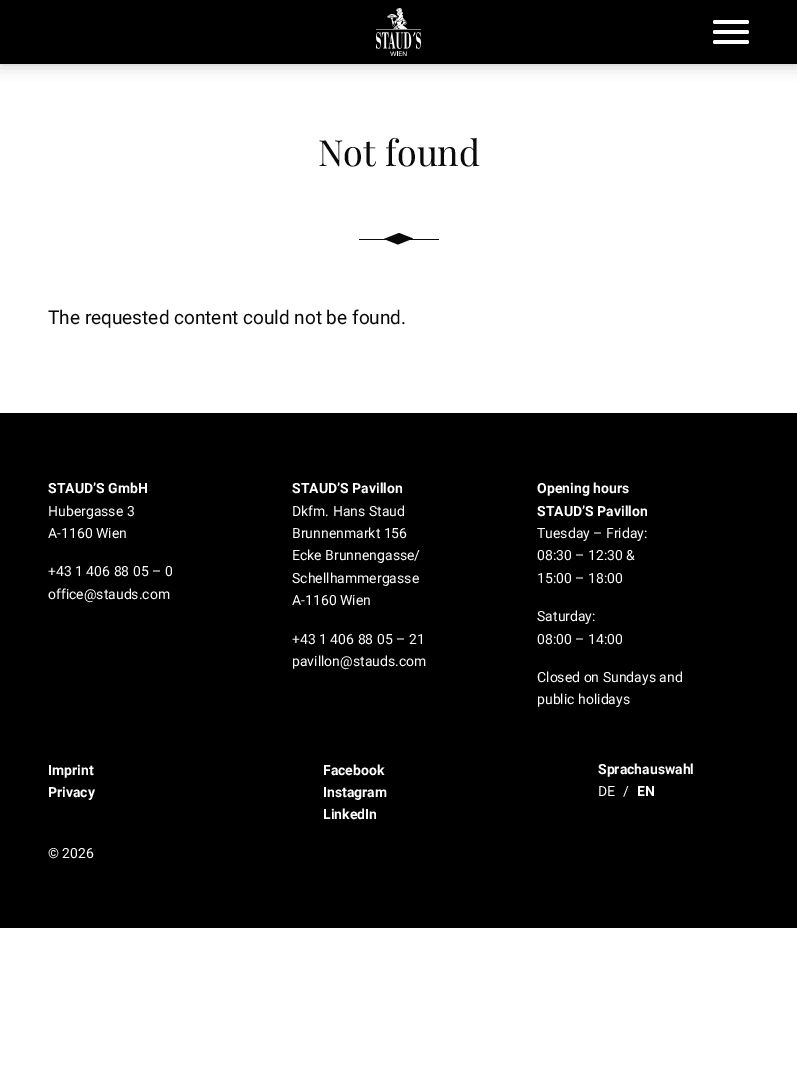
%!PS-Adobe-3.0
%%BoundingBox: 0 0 797 1072
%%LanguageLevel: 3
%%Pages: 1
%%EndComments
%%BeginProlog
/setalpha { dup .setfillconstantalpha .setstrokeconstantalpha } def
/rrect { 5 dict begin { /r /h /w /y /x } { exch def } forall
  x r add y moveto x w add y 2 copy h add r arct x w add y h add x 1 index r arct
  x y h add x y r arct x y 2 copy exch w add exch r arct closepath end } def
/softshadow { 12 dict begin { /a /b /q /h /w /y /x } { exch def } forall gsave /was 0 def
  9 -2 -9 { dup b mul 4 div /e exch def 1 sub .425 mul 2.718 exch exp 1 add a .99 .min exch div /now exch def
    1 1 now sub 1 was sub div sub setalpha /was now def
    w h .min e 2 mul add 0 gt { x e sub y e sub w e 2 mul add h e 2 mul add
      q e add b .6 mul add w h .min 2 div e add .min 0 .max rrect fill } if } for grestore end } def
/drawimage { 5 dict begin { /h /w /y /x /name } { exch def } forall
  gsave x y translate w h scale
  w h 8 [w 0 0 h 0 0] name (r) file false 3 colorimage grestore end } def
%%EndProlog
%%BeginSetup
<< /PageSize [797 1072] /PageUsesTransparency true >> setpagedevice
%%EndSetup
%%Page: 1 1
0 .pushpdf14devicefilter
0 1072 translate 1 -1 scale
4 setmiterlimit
1 setgray
0 0 797 1072 rectfill
0 setgray
0 0 797 64 0 8 0.25 softshadow
0 0 797 64 rectfill
(images/1.raw) 376 8 45 48 drawimage
1 setgray
713 30 36 4 2 rrect fill
713 20 36 4 2 rrect fill
713 40 36 4 2 rrect fill
0.039 setgray
newpath 384 239 moveto 399 233 lineto 413 238.5 lineto 398 244.5 lineto closepath fill
359 239 80 1 rectfill
0 setgray
0 413 797 515 rectfill
/PlayfairDisplay-Regular [36 0 0 -36 0 0] selectfont
0.039 setgray
318 166 moveto (Not found) show
/Roboto-Regular [19 0 0 -19 0 0] selectfont
48 324 moveto (The requested content could not be found.) show
/Roboto-Bold [14 0 0 -14 0 0] selectfont
1 setgray
48 493 moveto (STAUD’S GmbH) show
/Roboto-Regular [14 0 0 -14 0 0] selectfont
48 516 moveto (Hubergasse 3) show
48 538 moveto (A-1160 Wien) show
48 576 moveto (+43 1 406 88 05 – 0) show
48 599 moveto (office@stauds.com) show
/Roboto-Bold [14 0 0 -14 0 0] selectfont
292 493 moveto (STAUD’S Pavillon) show
/Roboto-Regular [14 0 0 -14 0 0] selectfont
292 516 moveto (Dkfm. Hans Staud) show
292 538 moveto (Brunnenmarkt 156) show
292 560 moveto (Ecke Brunnengasse/) show
292 583 moveto (Schellhammergasse) show
292 605 moveto (A-1160 Wien) show
292 644 moveto (+43 1 406 88 05 – 21) show
292 666 moveto (pavillon@stauds.com) show
/Roboto-Bold [14 0 0 -14 0 0] selectfont
537 493 moveto (Opening hours) show
537 516 moveto (STAUD’S Pavillon) show
/Roboto-Regular [14 0 0 -14 0 0] selectfont
537 538 moveto (Tuesday – Friday:) show
537 560 moveto (08:30 – 12:30 &) show
537 583 moveto (15:00 – 18:00) show
537 621 moveto (Saturday:) show
537 644 moveto (08:00 – 14:00) show
537 682 moveto (Closed on Sundays and) show
537 704 moveto (public holidays) show
/Roboto-Bold [14 0 0 -14 0 0] selectfont
48 775 moveto (Imprint) show
48 797 moveto (Privacy) show
323 775 moveto (Facebook) show
323 797 moveto (Instagram) show
323 819 moveto (LinkedIn) show
598 774 moveto (Sprachauswahl) show
/Roboto-Regular [14 0 0 -14 0 0] selectfont
598 796 moveto (DE) show
623 796 moveto (/) show
/Roboto-Bold [14 0 0 -14 0 0] selectfont
637 796 moveto (EN) show
/Roboto-Regular [14 0 0 -14 0 0] selectfont
48 858 moveto (© 2026) show
.poppdf14devicefilter showpage
%%EOF
